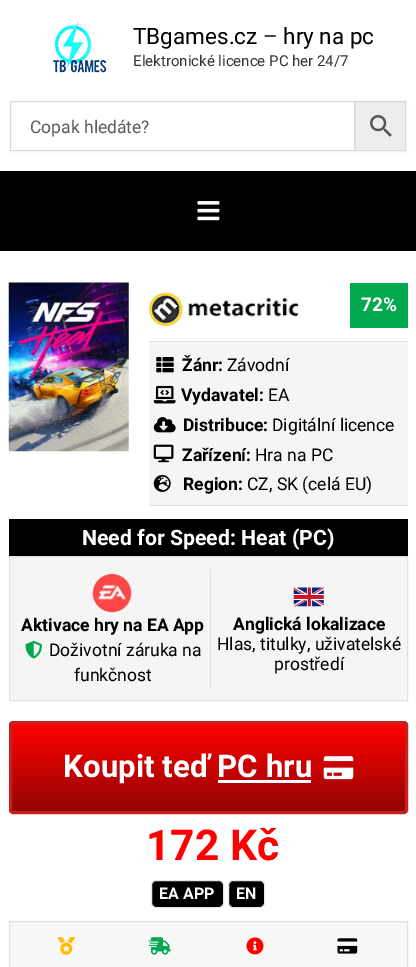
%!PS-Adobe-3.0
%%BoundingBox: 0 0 416 967
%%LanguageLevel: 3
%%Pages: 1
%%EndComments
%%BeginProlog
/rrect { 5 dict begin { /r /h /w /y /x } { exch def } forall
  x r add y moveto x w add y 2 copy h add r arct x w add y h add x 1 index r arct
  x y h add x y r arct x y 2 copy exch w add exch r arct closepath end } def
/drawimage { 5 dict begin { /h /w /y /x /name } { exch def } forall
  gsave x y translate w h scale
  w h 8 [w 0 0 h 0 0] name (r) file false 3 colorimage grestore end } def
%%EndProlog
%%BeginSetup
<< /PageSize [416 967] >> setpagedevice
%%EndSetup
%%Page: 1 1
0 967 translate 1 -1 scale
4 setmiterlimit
1 setgray
0 0 416 967 rectfill
(images/1.raw) 53 21 54 52 drawimage
0.984 setgray
9.5 100.5 398 52 rectstroke
0.929 setgray
newpath 354.5 101.5 moveto 405.5 101.5 lineto 405.5 150.5 lineto 354.5 150.5 lineto closepath gsave fill grestore
0.847 setgray
stroke
10.5 101.5 344 49 rectstroke
(images/2.raw) 370 115 22 22 drawimage
0 setgray
0 171 416 80 rectfill
(images/3.raw) 197 201 23 20 drawimage
(images/4.raw) 8 282 121 170 drawimage
(images/5.raw) 148 292 151 35 drawimage
0.012 0.659 0.306 setrgbcolor
350 283 58 45 rectfill
0.961 setgray
149 342 259 163 rectfill
0.882 setgray
149 341 259 1 rectfill
149 505 259 1 rectfill
(images/6.raw) 156 357 18 16 drawimage
(images/7.raw) 153 385 23 19 drawimage
(images/8.raw) 153 417 23 16 drawimage
(images/9.raw) 153 444 21 19 drawimage
(images/10.raw) 153 475 18 17 drawimage
0 setgray
9 519 399 37 rectfill
0.961 setgray
9.5 556.5 398 144 0.5 rrect gsave fill grestore
0.882 setgray
stroke
210 569 1 119 rectfill
(images/11.raw) 92 573 40 40 drawimage
(images/12.raw) 25 641 17 18 drawimage
(images/13.raw) 293 587 31 20 drawimage
gsave newpath 9 724 moveto 408 724 lineto 408 811 lineto 9 811 lineto closepath clip newpath
<< /ShadingType 2 /ColorSpace /DeviceRGB /Coords [208 724 208 811] /Extend [true true] /Function << /FunctionType 2 /Domain [0 1] /C0 [1 0 0] /C1 [0.576 0.016 0.016] /N 1 >> >> shfill grestore
0.773 0.133 0.122 setrgbcolor
3 setlinewidth
10.5 722.5 396 90 2.5 rrect stroke
1 setgray
218 780 93 3 rectfill
(images/14.raw) 323 756 31 24 drawimage
0 setgray
151.5 880.5 72 27 4.5 rrect gsave fill grestore
0.898 0.906 0.922 setrgbcolor
1 setlinewidth
stroke
0 setgray
228.5 880.5 36 27 4.5 rrect gsave fill grestore
0.898 0.906 0.922 setrgbcolor
stroke
0.969 setgray
newpath 9.5 921.5 moveto 407.5 921.5 lineto 407.5 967.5 lineto 9.5 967.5 lineto closepath gsave fill grestore
0.882 setgray
stroke
(images/15.raw) 57 937 18 18 drawimage
(images/16.raw) 148 937 23 18 drawimage
(images/17.raw) 246 937 18 18 drawimage
(images/18.raw) 337 938 21 16 drawimage
/Roboto-Regular [22.5 0 0 -22.5 0 0] selectfont
0 setgray
133 44 moveto (TBgames.cz – hry na pc) show
/Roboto-Regular [15 0 0 -15 0 0] selectfont
0.2 setgray
133 66 moveto (Elektronické licence PC her 24/7) show
/Roboto-Regular [17.5 0 0 -17.5 0 0] selectfont
0.361 setgray
30 133 moveto (Copak hledáte?) show
/Roboto-Bold [19 0 0 -19 0 0] selectfont
1 setgray
361 311 moveto (72%) show
/Roboto-Bold [17.5 0 0 -17.5 0 0] selectfont
0 setgray
182 371 moveto (Žánr:) show
/Roboto-Regular [17.5 0 0 -17.5 0 0] selectfont
227 371 moveto (Závodní) show
/Roboto-Bold [17.5 0 0 -17.5 0 0] selectfont
181 401 moveto (Vydavatel:) show
/Roboto-Regular [17.5 0 0 -17.5 0 0] selectfont
268 401 moveto (EA) show
/Roboto-Bold [17.5 0 0 -17.5 0 0] selectfont
183 431 moveto (Distribuce:) show
/Roboto-Regular [17.5 0 0 -17.5 0 0] selectfont
272 431 moveto (Digitální licence) show
/Roboto-Bold [17.5 0 0 -17.5 0 0] selectfont
182 461 moveto (Zařízení:) show
/Roboto-Regular [17.5 0 0 -17.5 0 0] selectfont
255 461 moveto (Hra na PC) show
/Roboto-Bold [17.5 0 0 -17.5 0 0] selectfont
183 490 moveto (Region:) show
/Roboto-Regular [17.5 0 0 -17.5 0 0] selectfont
247 490 moveto (CZ, SK \(celá EU\)) show
/Roboto-Bold [21.25 0 0 -21.25 0 0] selectfont
1 setgray
82 545 moveto (Need for Speed: Heat \(PC\)) show
/Roboto-Bold [17.5 0 0 -17.5 0 0] selectfont
0 setgray
21 631 moveto (Aktivace hry na EA App) show
/Roboto-Regular [17.5 0 0 -17.5 0 0] selectfont
49 656 moveto (Doživotní záruka na) show
74 681 moveto (funkčnost) show
/Roboto-Bold [17.5 0 0 -17.5 0 0] selectfont
233 630 moveto (Anglická lokalizace) show
/Roboto-Regular [17.5 0 0 -17.5 0 0] selectfont
217 650 moveto (Hlas, titulky, uživatelské) show
274 670 moveto (prostředí) show
/Roboto-Bold [31.25 0 0 -31.25 0 0] selectfont
1 setgray
63 777 moveto (Koupit teď PC hru) show
/Roboto-Bold [42.5 0 0 -42.5 0 0] selectfont
1 0 0 setrgbcolor
146 860 moveto (172 Kč) show
/Roboto-Bold [16 0 0 -16 0 0] selectfont
1 setgray
159 899 moveto (EA APP) show
236 899 moveto (EN) show
showpage
%%EOF
